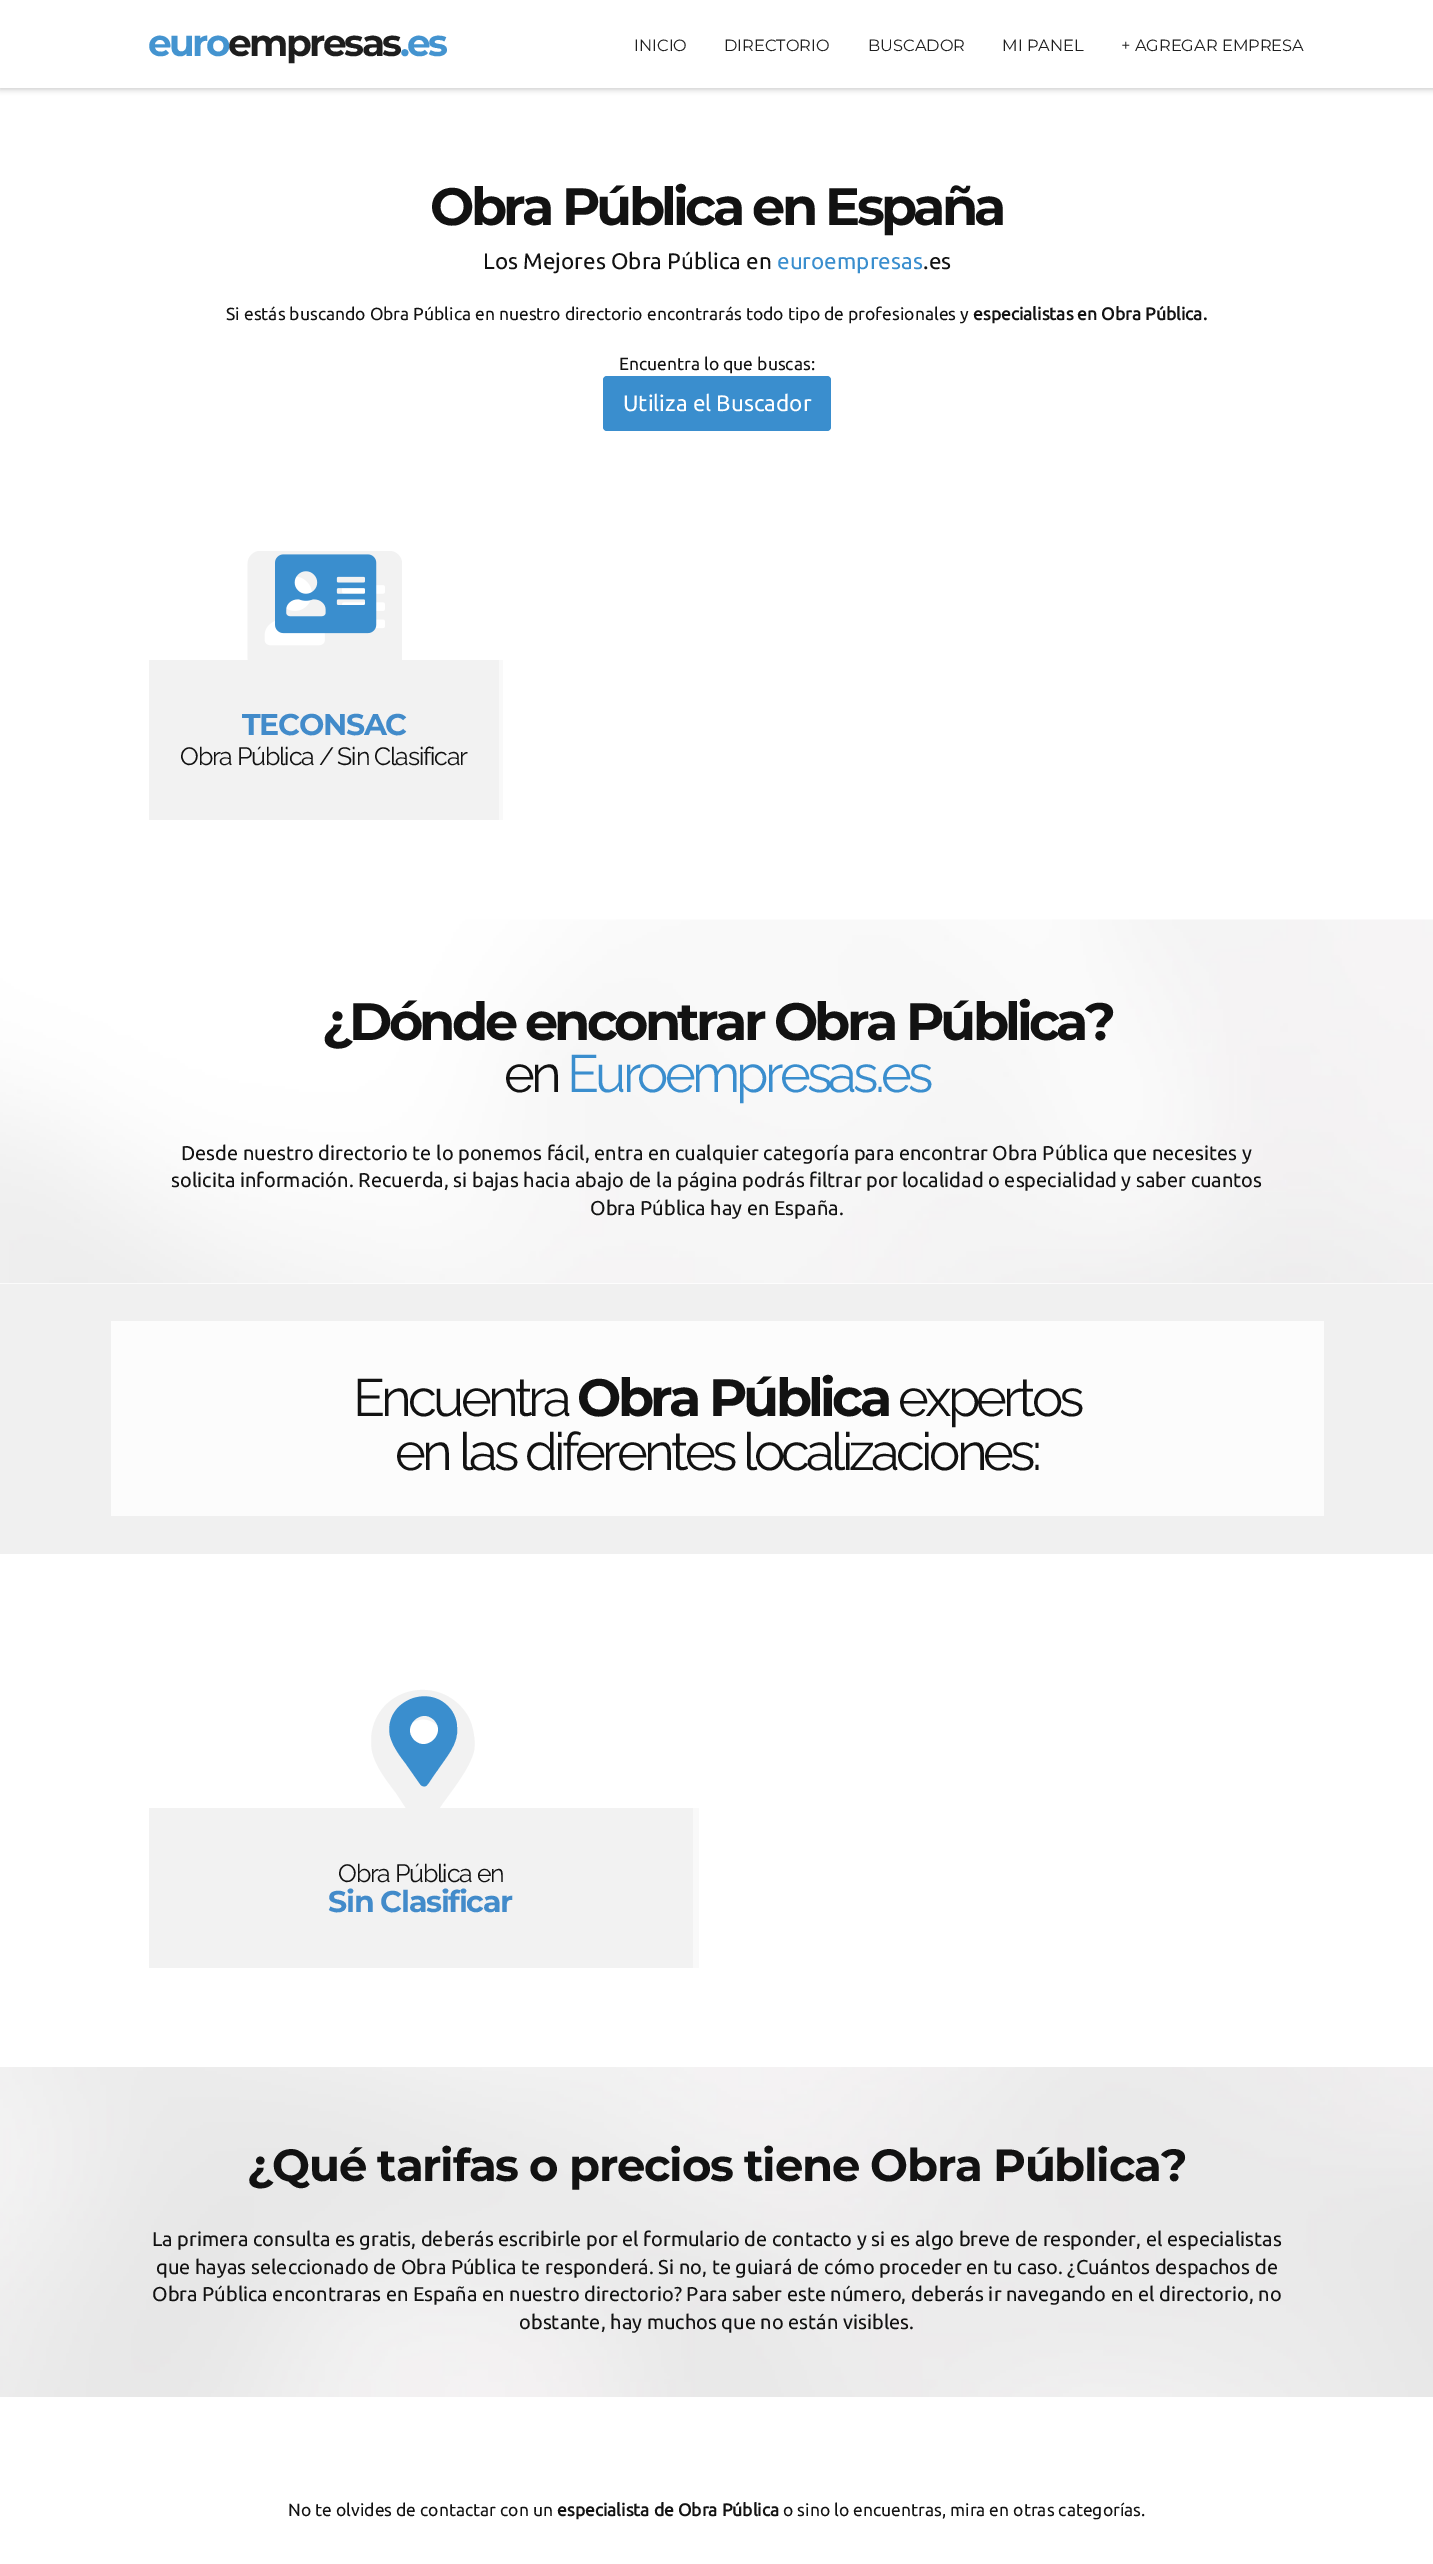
%!PS-Adobe-3.0
%%BoundingBox: 0 0 1433 2564
%%LanguageLevel: 3
%%Pages: 1
%%EndComments
%%BeginProlog
/setalpha { dup .setfillconstantalpha .setstrokeconstantalpha } def
/rrect { 5 dict begin { /r /h /w /y /x } { exch def } forall
  x r add y moveto x w add y 2 copy h add r arct x w add y h add x 1 index r arct
  x y h add x y r arct x y 2 copy exch w add exch r arct closepath end } def
/softshadow { 12 dict begin { /a /b /q /h /w /y /x } { exch def } forall gsave /was 0 def
  9 -2 -9 { dup b mul 4 div /e exch def 1 sub .425 mul 2.718 exch exp 1 add a .99 .min exch div /now exch def
    1 1 now sub 1 was sub div sub setalpha /was now def
    w h .min e 2 mul add 0 gt { x e sub y e sub w e 2 mul add h e 2 mul add
      q e add b .6 mul add w h .min 2 div e add .min 0 .max rrect fill } if } for grestore end } def
/drawimage { 5 dict begin { /h /w /y /x /name } { exch def } forall
  gsave x y translate w h scale
  w h 8 [w 0 0 h 0 0] name (r) file false 3 colorimage grestore end } def
%%EndProlog
%%BeginSetup
<< /PageSize [1433 2564] /PageUsesTransparency true >> setpagedevice
%%EndSetup
%%Page: 1 1
0 .pushpdf14devicefilter
0 2564 translate 1 -1 scale
4 setmiterlimit
1 setgray
0 0 1433 2564 rectfill
0.051 setgray
0 1 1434 88 0 3 0.25 softshadow
1 setgray
0 0 1433 88 rectfill
0.227 0.557 0.808 setrgbcolor
603 376 228 55 4 rrect fill
(images/1.raw) 247 551 155 109 drawimage
(images/2.raw) 275 554 102 80 drawimage
0.976 setgray
499 660 4 160 rectfill
0.949 setgray
149 660 350 160 rectfill
(images/3.raw) 0 919 1433 365 drawimage
0.941 setgray
0 1284 1433 270 rectfill
0.988 setgray
111 1321 1213 195 rectfill
0.949 setgray
newpath 417 1825 moveto 396 1793 lineto 387 1781 375 1766 372 1751 curveto 371 1745 371 1737 372 1731 curveto 381 1686 440 1675 466 1713 curveto 471 1720 473 1728 474 1736 curveto 475 1741 475 1746 474 1751 curveto 470 1768 453 1789 443 1803 curveto 440 1807 429 1825 426 1827 curveto 423 1828 419 1827 417 1825 curveto closepath 408 1756 moveto 428 1776 458 1746 438 1726 curveto 418 1706 388 1736 408 1756 curveto closepath fill
0.227 0.557 0.808 setrgbcolor
newpath 420 1784 moveto 406 1764 lineto 400 1756 393 1747 390 1736 curveto 383 1701 431 1681 452 1711 curveto 455 1716 457 1721 457 1727 curveto 459 1744 446 1757 437 1771 curveto 435 1773 428 1785 426 1786 curveto 424 1787 421 1786 420 1784 curveto closepath 414 1740 moveto 427 1753 447 1733 434 1720 curveto 421 1707 401 1727 414 1740 curveto closepath fill
0.976 setgray
693 1808 6 160 rectfill
0.949 setgray
149 1808 544 160 rectfill
(images/4.raw) 0 2067 1433 330 drawimage
/Montserrat-Bold [37.5 0 0 -37.5 0 0] selectfont
0.267 0.58 0.816 setrgbcolor
148 56 moveto -2.5 0 (euro) ashow
0.118 setgray
228 56 moveto -2.5 0 (empresas) ashow
0.267 0.58 0.816 setrgbcolor
400 56 moveto -2.5 0 (.es) ashow
/Montserrat-Regular [16.25 0 0 -16.25 0 0] selectfont
0.118 setgray
634 51 moveto (INICIO) show
724 51 moveto (DIRECTORIO) show
868 51 moveto (BUSCADOR) show
1002 51 moveto (MI PANEL) show
1121 51 moveto (+ AGREGAR EMPRESA) show
/Montserrat-Bold [52.5 0 0 -52.5 0 0] selectfont
0.071 setgray
430 225 moveto -3.75 0 (Obra Pública en España) ashow
/Ubuntu-Regular [22.5 0 0 -22.5 0 0] selectfont
483 269 moveto (Los Mejores Obra Pública en) show
0.227 0.557 0.808 setrgbcolor
777 269 moveto (euroempresas) show
0.071 setgray
923 269 moveto (.es) show
/Ubuntu-Regular [17.5 0 0 -17.5 0 0] selectfont
226 320 moveto (Si estás buscando Obra Pública en nuestro directorio encontrarás todo tipo de profesionales y) show
/Ubuntu-Bold [17.5 0 0 -17.5 0 0] selectfont
973 320 moveto (especialistas en Obra Pública.) show
/Ubuntu-Regular [17.5 0 0 -17.5 0 0] selectfont
619 370 moveto (Encuentra lo que buscas:) show
/Ubuntu-Regular [22.5 0 0 -22.5 0 0] selectfont
1 setgray
623 411 moveto (Utiliza el Buscador) show
/Montserrat-Bold [30 0 0 -30 0 0] selectfont
0.259 0.545 0.792 setrgbcolor
242 735 moveto -1.25 0 (TECONSAC) ashow
/Raleway-Regular [25 0 0 -25 0 0] selectfont
0.071 setgray
180 765 moveto -1.25 0 (Obra Pública / Sin Clasificar) ashow
/Montserrat-Bold [52.5 0 0 -52.5 0 0] selectfont
322 1040 moveto -3.75 0 (¿Dónde encontrar Obra Pública?) ashow
/Raleway-Regular [52.5 0 0 -52.5 0 0] selectfont
504 1092 moveto -3.75 0 (en) ashow
0.227 0.557 0.808 setrgbcolor
567 1092 moveto -3.75 0 (Euroempresas.es) ashow
/Ubuntu-Regular [20 0 0 -20 0 0] selectfont
0.071 setgray
181 1160 moveto (Desde nuestro directorio te lo ponemos fácil, entra en cualquier categoría para encontrar Obra Pública que necesites y) show
171 1187 moveto (solicita información. Recuerda, si bajas hacia abajo de la página podrás filtrar por localidad o especialidad y saber cuantos) show
590 1215 moveto (Obra Pública hay en España.) show
/Raleway-Regular [52.5 0 0 -52.5 0 0] selectfont
353 1416 moveto -3.75 0 (Encuentra) ashow
/Montserrat-Bold [52.5 0 0 -52.5 0 0] selectfont
577 1416 moveto -3.75 0 (Obra Pública) ashow
/Raleway-Regular [52.5 0 0 -52.5 0 0] selectfont
898 1416 moveto -3.75 0 (expertos) ashow
395 1470 moveto -3.75 0 (en las diferentes localizaciones:) ashow
/Raleway-Regular [25 0 0 -25 0 0] selectfont
338 1882 moveto -1.25 0 (Obra Pública en) ashow
/Montserrat-Bold [30 0 0 -30 0 0] selectfont
0.259 0.545 0.792 setrgbcolor
328 1912 moveto -1.25 0 (Sin Clasificar) ashow
/Montserrat-Bold [45 0 0 -45 0 0] selectfont
0.071 setgray
247 2181 moveto -1.25 0 (¿Qué tarifas o precios tiene Obra Pública?) ashow
/Ubuntu-Regular [20 0 0 -20 0 0] selectfont
152 2246 moveto (La primera consulta es gratis, deberás escribirle por el formulario de contacto y si es algo breve de responder, el especialistas) show
156 2274 moveto (que hayas seleccionado de Obra Pública te responderá. Si no, te guiará de cómo proceder en tu caso. ¿Cuántos despachos de) show
152 2301 moveto (Obra Pública encontraras en España en nuestro directorio? Para saber este número, deberás ir navegando en el directorio, no) show
519 2329 moveto (obstante, hay muchos que no están visibles.) show
/Ubuntu-Regular [17.5 0 0 -17.5 0 0] selectfont
288 2516 moveto (No te olvides de contactar con un) show
/Ubuntu-Bold [17.5 0 0 -17.5 0 0] selectfont
557 2516 moveto (especialista de Obra Pública) show
/Ubuntu-Regular [17.5 0 0 -17.5 0 0] selectfont
783 2516 moveto (o sino lo encuentras, mira en otras categorías.) show
.poppdf14devicefilter showpage
%%EOF
